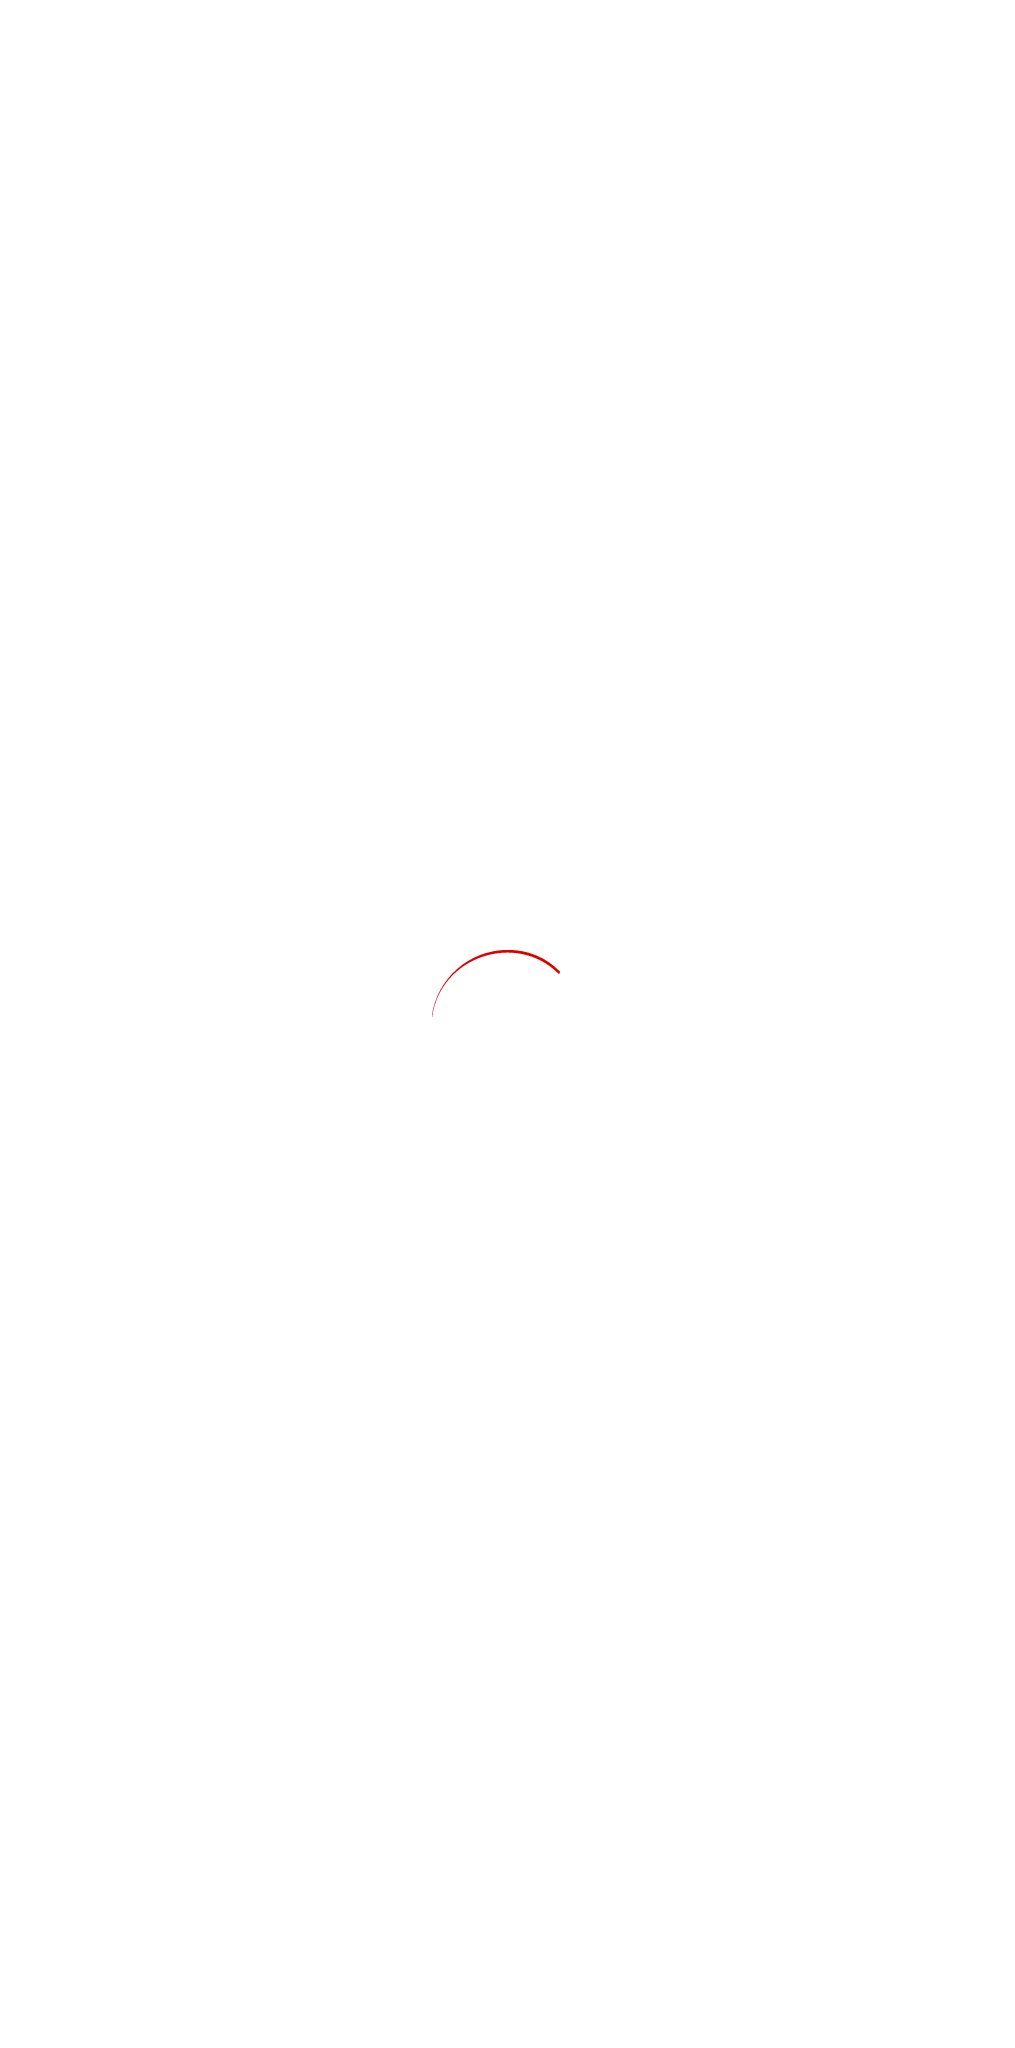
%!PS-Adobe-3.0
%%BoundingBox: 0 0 1015 2048
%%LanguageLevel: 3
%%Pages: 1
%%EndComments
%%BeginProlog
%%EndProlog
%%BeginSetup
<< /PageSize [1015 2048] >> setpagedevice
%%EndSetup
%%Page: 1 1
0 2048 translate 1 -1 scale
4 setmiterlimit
1 setgray
0 0 1015 2048 rectfill
0.871 0 0 setrgbcolor
newpath 508 950 moveto 469 950 437 979 432 1016 curveto 432 1017 lineto 440 956 517 931 559 974 curveto 560 972 lineto 547 958 528 950 508 950 curveto closepath fill
showpage
%%EOF
